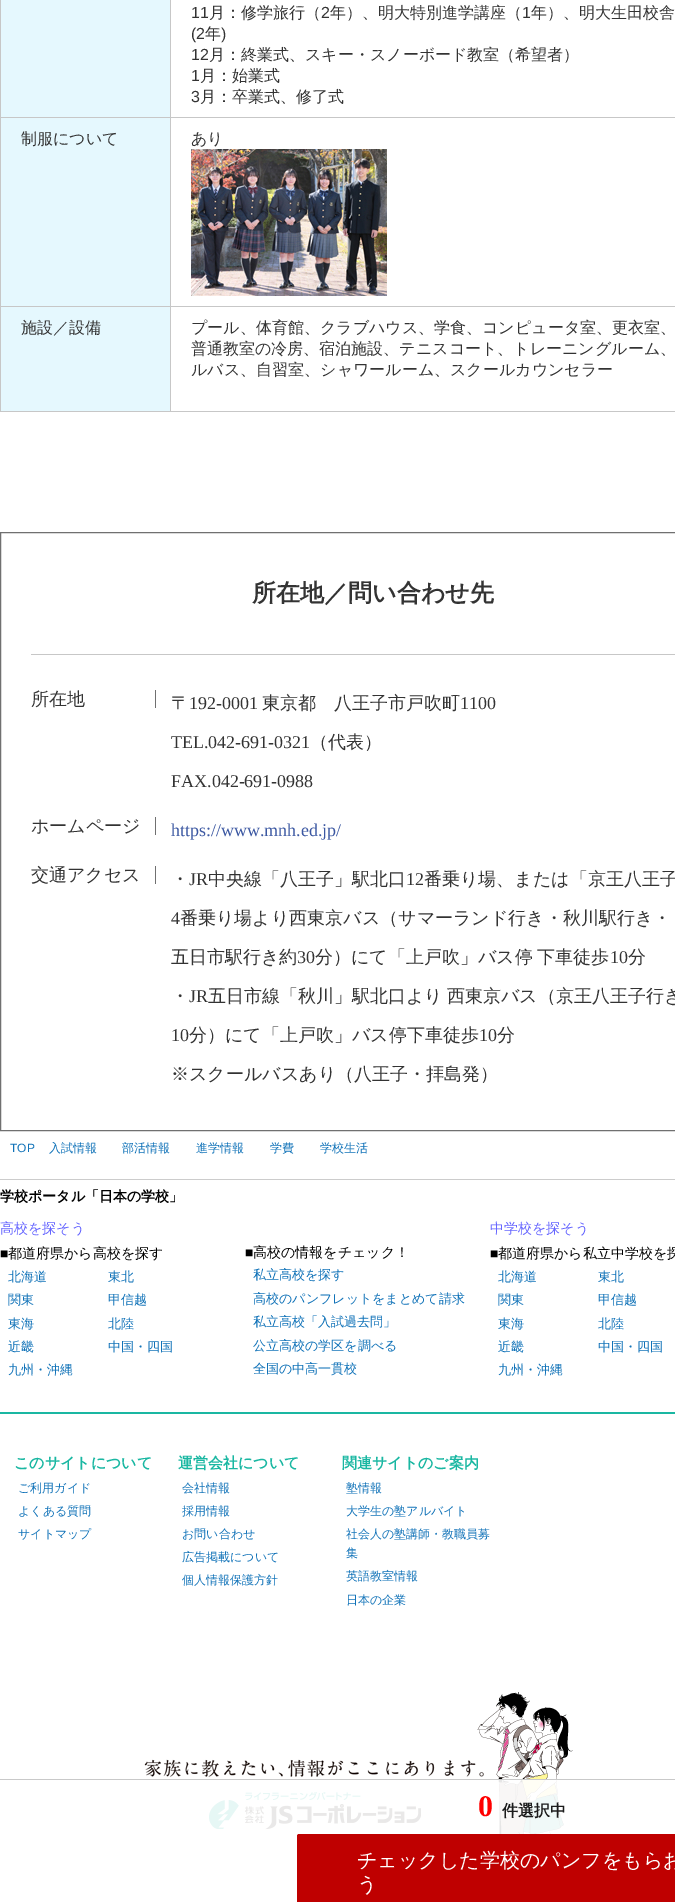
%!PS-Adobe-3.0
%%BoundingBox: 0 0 675 1902
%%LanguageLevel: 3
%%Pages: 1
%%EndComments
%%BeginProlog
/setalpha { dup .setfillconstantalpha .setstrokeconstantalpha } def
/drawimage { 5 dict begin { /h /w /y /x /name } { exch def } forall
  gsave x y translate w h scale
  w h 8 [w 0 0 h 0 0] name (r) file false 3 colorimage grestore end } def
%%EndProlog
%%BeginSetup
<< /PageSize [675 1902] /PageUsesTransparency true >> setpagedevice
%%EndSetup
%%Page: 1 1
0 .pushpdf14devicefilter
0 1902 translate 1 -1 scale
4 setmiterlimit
1 setgray
0 0 675 1902 rectfill
0.78 setgray
0 411 675 1 rectfill
0 0 1 412 rectfill
0 117 675 1 rectfill
0.898 0.973 0.996 setrgbcolor
1 0 169 117 rectfill
0.78 setgray
0 306 675 1 rectfill
0.898 0.973 0.996 setrgbcolor
1 118 169 188 rectfill
(images/1.raw) 191 149 196 147 drawimage
1 307 169 104 rectfill
0.78 setgray
170 0 1 412 rectfill
0.439 setgray
0.5 532.5 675 598 rectstroke
0.78 setgray
31 654 644 1 rectfill
0.439 setgray
155 690 1 18 rectfill
155 817 1 18 rectfill
155 866 1 18 rectfill
0.8 setgray
0 1179 675 1 rectfill
0.102 0.718 0.635 setrgbcolor
0 1412 675 2 rectfill
(images/2.raw) 144 1692 429 150 drawimage
0.9 setalpha
1 setgray
209 1780 355 62 rectfill
1 setalpha
0.788 setgray
0 1779 675 1 rectfill
0.749 0 0 setrgbcolor
newpath 299 1834 moveto 675 1834 lineto 675 1902 lineto 297 1902 lineto 297 1836 lineto 297 1835 298 1834 299 1834 curveto closepath fill
/LiberationSans-Regular [16 0 0 -16 0 0] selectfont
0.2 setgray
191 18 moveto (11) show
/WenQuanYiZenHei-Medium [16 0 0 -16 0 0] selectfont
209 18 moveto (月：修学旅行（) show
/LiberationSans-Regular [16 0 0 -16 0 0] selectfont
321 18 moveto (2) show
/WenQuanYiZenHei-Medium [16 0 0 -16 0 0] selectfont
330 18 moveto (年）、明大特別進学講座（) show
/LiberationSans-Regular [16 0 0 -16 0 0] selectfont
522 18 moveto (1) show
/WenQuanYiZenHei-Medium [16 0 0 -16 0 0] selectfont
531 18 moveto (年）、明大生田校舎) show
/LiberationSans-Regular [16 0 0 -16 0 0] selectfont
191 39 moveto (\(2) show
/WenQuanYiZenHei-Medium [16 0 0 -16 0 0] selectfont
205 39 moveto (年) show
/LiberationSans-Regular [16 0 0 -16 0 0] selectfont
221 39 moveto (\)) show
191 60 moveto (12) show
/WenQuanYiZenHei-Medium [16 0 0 -16 0 0] selectfont
209 60 moveto (月：終業式、スキー・スノーボード教室（希望者）) show
/LiberationSans-Regular [16 0 0 -16 0 0] selectfont
191 81 moveto (1) show
/WenQuanYiZenHei-Medium [16 0 0 -16 0 0] selectfont
200 81 moveto (月：始業式) show
/LiberationSans-Regular [16 0 0 -16 0 0] selectfont
191 102 moveto (3) show
/WenQuanYiZenHei-Medium [16 0 0 -16 0 0] selectfont
200 102 moveto (月：卒業式、修了式) show
21 144 moveto (制服について) show
191 144 moveto (あり) show
21 333 moveto (施設／設備) show
191 333 moveto (プール、体育館、クラブハウス、学食、コンピュータ室、更衣室、) show
191 354 moveto (普通教室の冷房、宿泊施設、テニスコート、トレーニングルーム、) show
191 375 moveto (ルバス、自習室、シャワールーム、スクールカウンセラー) show
/WenQuanYiZenHei-Bold [24 0 0 -24 0 0] selectfont
252 601 moveto (所在地／問い合わせ先) show
/WenQuanYiZenHei-Medium [18 0 0 -18 0 0] selectfont
31 705 moveto (所在地) show
171 709 moveto (〒) show
/LiberationSerif-Regular [18 0 0 -18 0 0] selectfont
189 709 moveto (192-0001) show
/WenQuanYiZenHei-Medium [18 0 0 -18 0 0] selectfont
262 709 moveto (東京都　八王子市戸吹町) show
/LiberationSerif-Regular [18 0 0 -18 0 0] selectfont
460 709 moveto (1100) show
171 748 moveto (TEL.042-691-0321) show
/WenQuanYiZenHei-Medium [18 0 0 -18 0 0] selectfont
310 748 moveto (（代表）) show
/LiberationSerif-Regular [18 0 0 -18 0 0] selectfont
171 787 moveto (FAX.042-691-0988) show
/WenQuanYiZenHei-Medium [18 0 0 -18 0 0] selectfont
31 832 moveto (ホームページ) show
/LiberationSerif-Regular [18 0 0 -18 0 0] selectfont
0.235 0.345 0.635 setrgbcolor
171 836 moveto (https://www.mnh.ed.jp/) show
/WenQuanYiZenHei-Medium [18 0 0 -18 0 0] selectfont
0.2 setgray
31 881 moveto (交通アクセス) show
171 885 moveto (・) show
/LiberationSerif-Regular [18 0 0 -18 0 0] selectfont
189 885 moveto (JR) show
/WenQuanYiZenHei-Medium [18 0 0 -18 0 0] selectfont
208 885 moveto (中央線「八王子」駅北口) show
/LiberationSerif-Regular [18 0 0 -18 0 0] selectfont
406 885 moveto (12) show
/WenQuanYiZenHei-Medium [18 0 0 -18 0 0] selectfont
424 885 moveto (番乗り場、または「京王八王子) show
/LiberationSerif-Regular [18 0 0 -18 0 0] selectfont
171 924 moveto (4) show
/WenQuanYiZenHei-Medium [18 0 0 -18 0 0] selectfont
180 924 moveto (番乗り場より西東京バス（サマーランド行き・秋川駅行き・) show
171 963 moveto (五日市駅行き約) show
/LiberationSerif-Regular [18 0 0 -18 0 0] selectfont
297 963 moveto (30) show
/WenQuanYiZenHei-Medium [18 0 0 -18 0 0] selectfont
315 963 moveto -1 0 32 (分）にて「上戸吹」バス停 下車徒歩) widthshow
/LiberationSerif-Regular [18 0 0 -18 0 0] selectfont
610 963 moveto (10) show
/WenQuanYiZenHei-Medium [18 0 0 -18 0 0] selectfont
628 963 moveto (分) show
171 1002 moveto (・) show
/LiberationSerif-Regular [18 0 0 -18 0 0] selectfont
189 1002 moveto (JR) show
/WenQuanYiZenHei-Medium [18 0 0 -18 0 0] selectfont
208 1002 moveto (五日市線「秋川」駅北口より) show
447 1002 moveto (西東京バス（京王八王子行き) show
/LiberationSerif-Regular [18 0 0 -18 0 0] selectfont
171 1041 moveto (10) show
/WenQuanYiZenHei-Medium [18 0 0 -18 0 0] selectfont
189 1041 moveto (分）にて「上戸吹」バス停下車徒歩) show
/LiberationSerif-Regular [18 0 0 -18 0 0] selectfont
479 1041 moveto (10) show
/WenQuanYiZenHei-Medium [18 0 0 -18 0 0] selectfont
497 1041 moveto (分) show
171 1080 moveto (※スクールバスあり（八王子・拝島発）) show
/LiberationSans-Regular [12 0 0 -12 0 0] selectfont
0.063 0.447 0.722 setrgbcolor
10 1152 moveto (TOP) show
/WenQuanYiZenHei-Medium [12 0 0 -12 0 0] selectfont
49 1152 moveto (入試情報) show
122 1152 moveto (部活情報) show
196 1152 moveto (進学情報) show
270 1152 moveto (学費) show
320 1152 moveto (学校生活) show
/WenQuanYiZenHei-Bold [14 0 0 -14 0 0] selectfont
0 setgray
0 1201 moveto (学校ポータル「日本の学校」) show
/WenQuanYiZenHei-Medium [14 0 0 -14 0 0] selectfont
0.4 0.4 1 setrgbcolor
0 1233 moveto (高校を探そう) show
/LiberationSans-Regular [14 0 0 -14 0 0] selectfont
0 setgray
0 1258 moveto (■) show
/WenQuanYiZenHei-Medium [14 0 0 -14 0 0] selectfont
8 1258 moveto (都道府県から高校を探す) show
/WenQuanYiZenHei-Medium [13 0 0 -13 0 0] selectfont
0.063 0.447 0.722 setrgbcolor
8 1281 moveto (北海道) show
8 1304 moveto (関東) show
8 1328 moveto (東海) show
8 1351 moveto (近畿) show
8 1374 moveto (九州・沖縄) show
108 1281 moveto (東北) show
108 1304 moveto (甲信越) show
108 1328 moveto (北陸) show
108 1351 moveto (中国・四国) show
/LiberationSans-Regular [14 0 0 -14 0 0] selectfont
0 setgray
245 1257 moveto (■) show
/WenQuanYiZenHei-Medium [14 0 0 -14 0 0] selectfont
253 1257 moveto (高校の情報をチェック！) show
/WenQuanYiZenHei-Medium [13 0 0 -13 0 0] selectfont
0.063 0.447 0.722 setrgbcolor
253 1279 moveto (私立高校を探す) show
253 1303 moveto (高校のパンフレットをまとめて請求) show
253 1326 moveto (私立高校「入試過去問」) show
253 1350 moveto (公立高校の学区を調べる) show
253 1373 moveto (全国の中高一貫校) show
/WenQuanYiZenHei-Medium [14 0 0 -14 0 0] selectfont
0.4 0.4 1 setrgbcolor
490 1233 moveto (中学校を探そう) show
/LiberationSans-Regular [14 0 0 -14 0 0] selectfont
0 setgray
490 1258 moveto (■) show
/WenQuanYiZenHei-Medium [14 0 0 -14 0 0] selectfont
498 1258 moveto (都道府県から私立中学校を探) show
/WenQuanYiZenHei-Medium [13 0 0 -13 0 0] selectfont
0.063 0.447 0.722 setrgbcolor
498 1281 moveto (北海道) show
498 1304 moveto (関東) show
498 1328 moveto (東海) show
498 1351 moveto (近畿) show
498 1374 moveto (九州・沖縄) show
598 1281 moveto (東北) show
598 1304 moveto (甲信越) show
598 1328 moveto (北陸) show
598 1351 moveto (中国・四国) show
/WenQuanYiZenHei-Bold [15 0 0 -15 0 0] selectfont
0.102 0.718 0.635 setrgbcolor
14 1468 moveto (このサイトについて) show
/WenQuanYiZenHei-Medium [12 0 0 -12 0 0] selectfont
0.063 0.447 0.722 setrgbcolor
18 1492 moveto (ご利用ガイド) show
18 1515 moveto (よくある質問) show
18 1538 moveto (サイトマップ) show
/WenQuanYiZenHei-Bold [15 0 0 -15 0 0] selectfont
0.102 0.718 0.635 setrgbcolor
178 1468 moveto (運営会社について) show
/WenQuanYiZenHei-Medium [12 0 0 -12 0 0] selectfont
0.063 0.447 0.722 setrgbcolor
182 1492 moveto (会社情報) show
182 1515 moveto (採用情報) show
182 1538 moveto (お問い合わせ) show
182 1561 moveto (広告掲載について) show
182 1584 moveto (個人情報保護方針) show
/WenQuanYiZenHei-Bold [15 0 0 -15 0 0] selectfont
0.102 0.718 0.635 setrgbcolor
342 1468 moveto (関連サイトのご案内) show
/WenQuanYiZenHei-Medium [12 0 0 -12 0 0] selectfont
0.063 0.447 0.722 setrgbcolor
346 1492 moveto (塾情報) show
346 1515 moveto (大学生の塾アルバイト) show
346 1538 moveto (社会人の塾講師・教職員募) show
346 1557 moveto (集) show
346 1580 moveto (英語教室情報) show
346 1604 moveto (日本の企業) show
/LiberationSerif-Bold [30 0 0 -30 0 0] selectfont
1 0 0 setrgbcolor
478 1816 moveto (0) show
/WenQuanYiZenHei-Bold [16 0 0 -16 0 0] selectfont
0.11 setgray
502 1816 moveto (件選択中) show
/WenQuanYiZenHei-Medium [20 0 0 -20 0 0] selectfont
1 setgray
357 1867 moveto (チェックした学校のパンフをもらお) show
357 1891 moveto (う) show
.poppdf14devicefilter showpage
%%EOF
